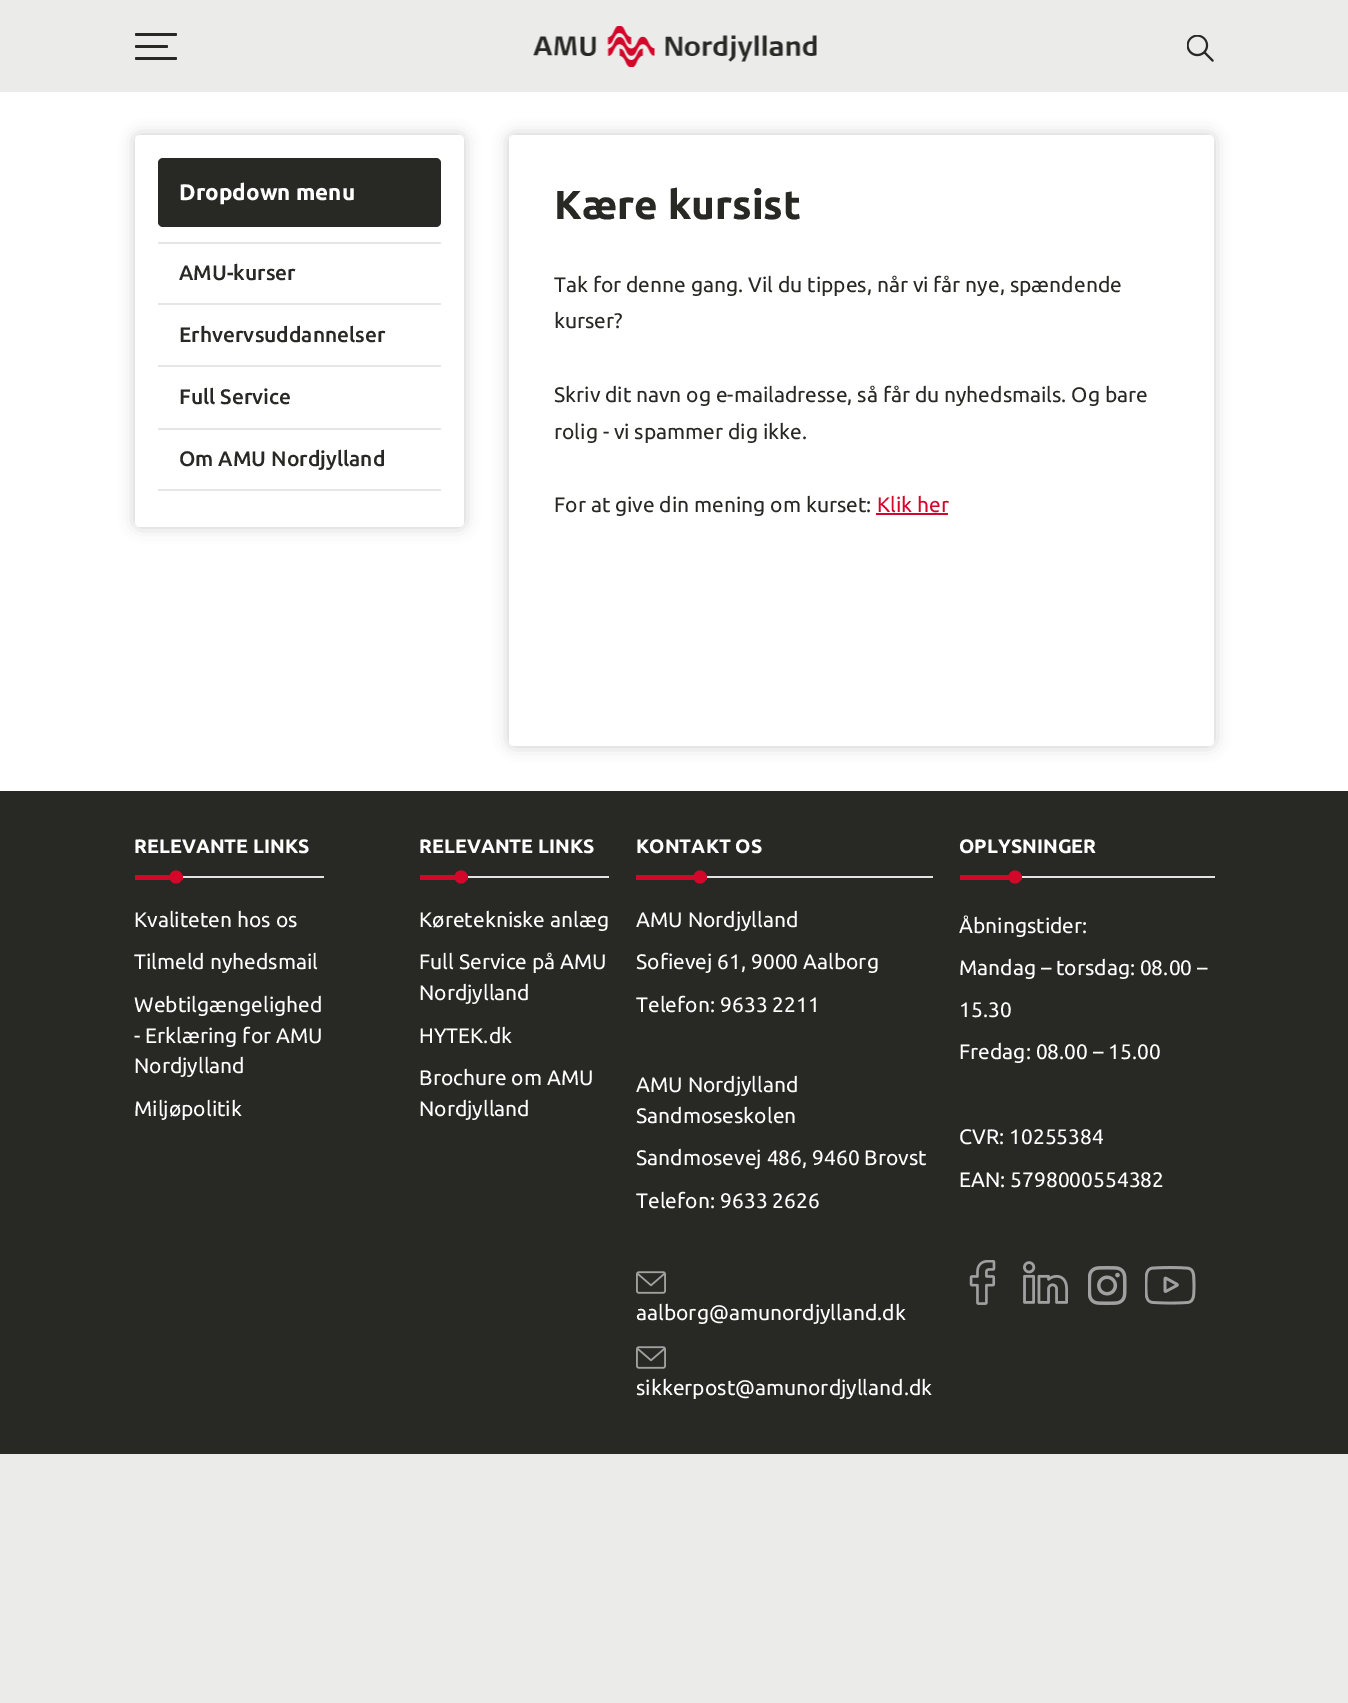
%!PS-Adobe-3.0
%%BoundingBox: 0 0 1348 1703
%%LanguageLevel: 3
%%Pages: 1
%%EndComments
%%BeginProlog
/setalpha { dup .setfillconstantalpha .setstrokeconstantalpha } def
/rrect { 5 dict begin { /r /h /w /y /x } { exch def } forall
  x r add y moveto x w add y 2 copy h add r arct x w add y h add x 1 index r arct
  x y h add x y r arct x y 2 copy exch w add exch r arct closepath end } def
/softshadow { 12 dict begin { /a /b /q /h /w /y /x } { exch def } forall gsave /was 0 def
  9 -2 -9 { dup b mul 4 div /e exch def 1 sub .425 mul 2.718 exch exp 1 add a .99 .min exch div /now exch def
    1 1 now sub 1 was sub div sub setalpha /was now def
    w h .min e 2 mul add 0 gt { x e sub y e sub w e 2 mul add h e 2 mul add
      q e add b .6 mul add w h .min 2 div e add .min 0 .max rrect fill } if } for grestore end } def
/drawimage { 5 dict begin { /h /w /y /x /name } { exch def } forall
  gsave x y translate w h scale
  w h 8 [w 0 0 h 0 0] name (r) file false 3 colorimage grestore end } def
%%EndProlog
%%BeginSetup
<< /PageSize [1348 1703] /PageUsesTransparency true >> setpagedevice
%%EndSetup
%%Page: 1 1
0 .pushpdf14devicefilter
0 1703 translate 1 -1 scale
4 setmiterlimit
1 setgray
0 0 1348 1703 rectfill
(images/1.raw) 0 1454 1348 249 drawimage
0.922 0.922 0.918 setrgbcolor
0 0 1348 92 rectfill
0.157 0.157 0.141 setrgbcolor
135 33 42 3 1.5 rrect fill
135 45 33 3 1.5 rrect fill
135 57 42 3 1.5 rrect fill
(images/2.raw) 533 26 284 41 drawimage
(images/3.raw) 1187 35 27 27 drawimage
0 setgray
135 135 329 392 5 7.5 0.2 softshadow
1 setgray
135 135 329 392 5 rrect fill
0.157 0.157 0.141 setrgbcolor
158 158 283 69 5 rrect fill
0.902 setgray
158 242 283 2 rectfill
158 303 283 2 rectfill
158 365 283 2 rectfill
158 428 283 2 rectfill
158 489 283 2 rectfill
0 setgray
509 135 705 611 5 7.5 0.2 softshadow
1 setgray
509 135 705 611 5 rrect fill
0.827 0.027 0.165 setrgbcolor
876 513 72 2 rectfill
0.157 0.157 0.141 setrgbcolor
0 791 1348 663 rectfill
0.827 0.027 0.165 setrgbcolor
newpath 176 877 6.5 0 360 arc closepath fill
135 875 48 5 rectfill
0.89 setgray
183 876 141 2 rectfill
0.827 0.027 0.165 setrgbcolor
newpath 461 877 6.5 0 360 arc closepath fill
420 875 48 5 rectfill
0.89 setgray
468 876 141 2 rectfill
0.827 0.027 0.165 setrgbcolor
newpath 700 877 6.5 0 360 arc closepath fill
636 875 71 5 rectfill
0.89 setgray
707 876 226 2 rectfill
(images/4.raw) 636 1271 30 23 drawimage
(images/4.raw) 636 1346 30 23 drawimage
0.827 0.027 0.165 setrgbcolor
newpath 1015 877 6.5 0 360 arc closepath fill
960 875 62 5 rectfill
0.89 setgray
1022 876 193 2 rectfill
(images/5.raw) 969 1260 27 45 drawimage
(images/6.raw) 1023 1261 45 43 drawimage
(images/7.raw) 1088 1266 39 39 drawimage
(images/8.raw) 1145 1266 51 39 drawimage
/Ubuntu-Bold [22.5 0 0 -22.5 0 0] selectfont
1 setgray
179 200 moveto (Dropdown menu) show
/Ubuntu-Medium [21 0 0 -21 0 0] selectfont
0.157 0.157 0.141 setrgbcolor
179 280 moveto (AMU-kurser) show
179 342 moveto (Erhvervsuddannelser) show
179 404 moveto (Full Service) show
179 466 moveto (Om AMU Nordjylland) show
/Ubuntu-Bold [40.5 0 0 -40.5 0 0] selectfont
554 219 moveto (Kære kursist) show
/Ubuntu-Regular [21 0 0 -21 0 0] selectfont
554 292 moveto (Tak for denne gang. Vil du tippes, når vi får nye, spændende) show
554 328 moveto (kurser?) show
554 402 moveto (Skriv dit navn og e-mailadresse, så får du nyhedsmails. Og bare) show
554 439 moveto (rolig - vi spammer dig ikke.) show
554 512 moveto (For at give din mening om kurset:) show
0.827 0.027 0.165 setrgbcolor
877 512 moveto (Klik her) show
/Ubuntu-Bold [19.5 0 0 -19.5 0 0] selectfont
1 setgray
134 853 moveto (RELEVANTE LINKS) show
/Ubuntu-Regular [21 0 0 -21 0 0] selectfont
134 927 moveto (Kvaliteten hos os) show
134 969 moveto (Tilmeld nyhedsmail) show
134 1012 moveto (Webtilgængelighed) show
134 1043 moveto (- Erklæring for AMU) show
134 1073 moveto (Nordjylland) show
134 1116 moveto (Miljøpolitik) show
/Ubuntu-Bold [19.5 0 0 -19.5 0 0] selectfont
419 853 moveto (RELEVANTE LINKS) show
/Ubuntu-Regular [21 0 0 -21 0 0] selectfont
419 927 moveto (Køretekniske anlæg) show
419 969 moveto (Full Service på AMU) show
419 1000 moveto (Nordjylland) show
419 1043 moveto (HYTEK.dk) show
419 1085 moveto (Brochure om AMU) show
419 1116 moveto (Nordjylland) show
/Ubuntu-Bold [19.5 0 0 -19.5 0 0] selectfont
636 853 moveto (KONTAKT OS) show
/Ubuntu-Regular [21 0 0 -21 0 0] selectfont
636 927 moveto (AMU Nordjylland) show
636 969 moveto (Sofievej 61, 9000 Aalborg) show
636 1012 moveto (Telefon:) show
720 1012 moveto (9633 2211) show
636 1092 moveto (AMU Nordjylland) show
636 1123 moveto (Sandmoseskolen) show
636 1165 moveto (Sandmosevej 486, 9460 Brovst) show
636 1208 moveto (Telefon:) show
720 1208 moveto (9633 2626) show
636 1320 moveto (aalborg@amunordjylland.dk) show
636 1395 moveto (sikkerpost@amunordjylland.dk) show
/Ubuntu-Bold [19.5 0 0 -19.5 0 0] selectfont
959 853 moveto (OPLYSNINGER) show
/Ubuntu-Regular [21 0 0 -21 0 0] selectfont
959 933 moveto (Åbningstider:) show
959 975 moveto (Mandag – torsdag: 08.00 –) show
959 1017 moveto (15.30) show
959 1059 moveto (Fredag: 08.00 – 15.00) show
959 1144 moveto (CVR: 10255384) show
959 1187 moveto (EAN: 5798000554382) show
.poppdf14devicefilter showpage
%%EOF
